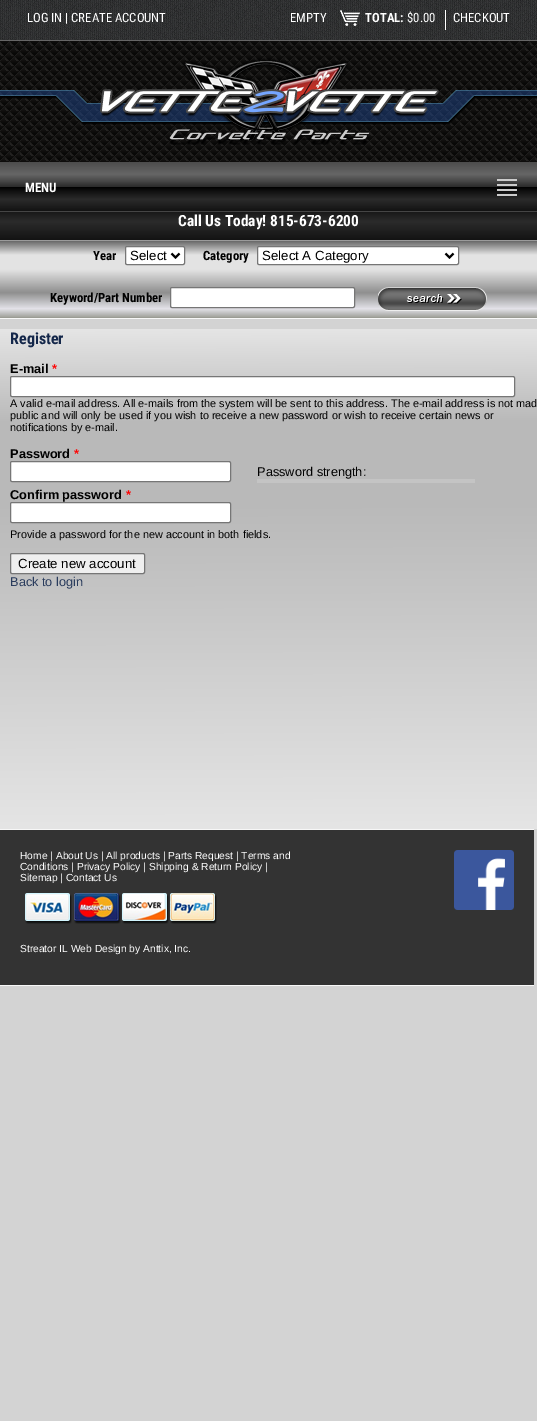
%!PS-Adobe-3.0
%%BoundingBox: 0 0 537 1421
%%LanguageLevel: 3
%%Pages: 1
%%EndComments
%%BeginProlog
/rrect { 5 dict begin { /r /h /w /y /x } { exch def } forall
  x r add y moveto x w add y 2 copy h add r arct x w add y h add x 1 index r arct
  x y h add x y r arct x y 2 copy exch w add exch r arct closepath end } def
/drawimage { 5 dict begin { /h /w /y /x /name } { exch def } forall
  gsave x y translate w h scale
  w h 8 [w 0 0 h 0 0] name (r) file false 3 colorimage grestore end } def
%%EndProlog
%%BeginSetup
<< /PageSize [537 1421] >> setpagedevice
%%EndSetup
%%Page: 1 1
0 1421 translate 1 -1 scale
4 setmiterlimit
0.827 setgray
0 0 537 1421 rectfill
(images/1.raw) 0 0 537 40 drawimage
0.4 setgray
0 40 537 1 rectfill
(images/2.raw) 340 10 20 16 drawimage
1 setgray
445 10 1 20 rectfill
(images/3.raw) 0 41 537 121 drawimage
(images/4.raw) 0 90 537 35 drawimage
(images/5.raw) 100 58 339 87 drawimage
gsave newpath 0 212 moveto 537 212 lineto 537 240 lineto 0 240 lineto closepath clip newpath
<< /ShadingType 2 /ColorSpace /DeviceRGB /Coords [269 162 269 240] /Extend [true true] /Function << /FunctionType 3 /Domain [0 1] /Functions [<< /FunctionType 2 /Domain [0 1] /C0 [0.298 0.298 0.298] /C1 [0.349 0.349 0.349] /N 1 >> << /FunctionType 2 /Domain [0 1] /C0 [0.349 0.349 0.349] /C1 [0.4 0.4 0.4] /N 1 >> << /FunctionType 2 /Domain [0 1] /C0 [0.4 0.4 0.4] /C1 [0.278 0.278 0.278] /N 1 >> << /FunctionType 2 /Domain [0 1] /C0 [0.278 0.278 0.278] /C1 [0.173 0.173 0.173] /N 1 >> << /FunctionType 2 /Domain [0 1] /C0 [0.173 0.173 0.173] /C1 [0 0 0] /N 1 >> << /FunctionType 2 /Domain [0 1] /C0 [0 0 0] /C1 [0.067 0.067 0.067] /N 1 >> << /FunctionType 2 /Domain [0 1] /C0 [0.067 0.067 0.067] /C1 [0.169 0.169 0.169] /N 1 >> << /FunctionType 2 /Domain [0 1] /C0 [0.169 0.169 0.169] /C1 [0.11 0.11 0.11] /N 1 >> << /FunctionType 2 /Domain [0 1] /C0 [0.11 0.11 0.11] /C1 [0.075 0.075 0.075] /N 1 >>] /Bounds [0.12 0.25 0.39 0.5 0.51 0.6 0.76 0.91] /Encode [0 1 0 1 0 1 0 1 0 1 0 1 0 1 0 1 0 1] >> >> shfill grestore
gsave newpath 0 162 moveto 537 162 lineto 537 211 lineto 0 211 lineto closepath clip newpath
<< /ShadingType 2 /ColorSpace /DeviceRGB /Coords [269 162 269 211] /Extend [true true] /Function << /FunctionType 3 /Domain [0 1] /Functions [<< /FunctionType 2 /Domain [0 1] /C0 [0.298 0.298 0.298] /C1 [0.349 0.349 0.349] /N 1 >> << /FunctionType 2 /Domain [0 1] /C0 [0.349 0.349 0.349] /C1 [0.4 0.4 0.4] /N 1 >> << /FunctionType 2 /Domain [0 1] /C0 [0.4 0.4 0.4] /C1 [0.278 0.278 0.278] /N 1 >> << /FunctionType 2 /Domain [0 1] /C0 [0.278 0.278 0.278] /C1 [0.173 0.173 0.173] /N 1 >> << /FunctionType 2 /Domain [0 1] /C0 [0.173 0.173 0.173] /C1 [0 0 0] /N 1 >> << /FunctionType 2 /Domain [0 1] /C0 [0 0 0] /C1 [0.067 0.067 0.067] /N 1 >> << /FunctionType 2 /Domain [0 1] /C0 [0.067 0.067 0.067] /C1 [0.169 0.169 0.169] /N 1 >> << /FunctionType 2 /Domain [0 1] /C0 [0.169 0.169 0.169] /C1 [0.11 0.11 0.11] /N 1 >> << /FunctionType 2 /Domain [0 1] /C0 [0.11 0.11 0.11] /C1 [0.075 0.075 0.075] /N 1 >>] /Bounds [0.12 0.25 0.39 0.5 0.51 0.6 0.76 0.91] /Encode [0 1 0 1 0 1 0 1 0 1 0 1 0 1 0 1 0 1] >> >> shfill grestore
0.271 setgray
0 211 537 1 rectfill
0.8 setgray
497 179 20 2 rectfill
497 184 20 2 rectfill
497 189 20 2 rectfill
497 194 20 2 rectfill
gsave newpath 0 241 moveto 537 241 lineto 537 318 lineto 0 318 lineto closepath clip newpath
<< /ShadingType 2 /ColorSpace /DeviceRGB /Coords [269 241 269 318] /Extend [true true] /Function << /FunctionType 3 /Domain [0 1] /Functions [<< /FunctionType 2 /Domain [0 1] /C0 [0.408 0.408 0.408] /C1 [0.89 0.89 0.89] /N 1 >> << /FunctionType 2 /Domain [0 1] /C0 [0.89 0.89 0.89] /C1 [0.89 0.89 0.89] /N 1 >> << /FunctionType 2 /Domain [0 1] /C0 [0.89 0.89 0.89] /C1 [0.561 0.561 0.561] /N 1 >> << /FunctionType 2 /Domain [0 1] /C0 [0.561 0.561 0.561] /C1 [0.89 0.886 0.91] /N 1 >> << /FunctionType 2 /Domain [0 1] /C0 [0.89 0.886 0.91] /C1 [0.608 0.612 0.58] /N 1 >>] /Bounds [0.18 0.37 0.67 0.88] /Encode [0 1 0 1 0 1 0 1 0 1] >> >> shfill grestore
0.608 setgray
0 240 537 1 rectfill
0.969 setgray
0 318 537 1 rectfill
1 setgray
125.5 246.5 59 18 1.5 rrect gsave fill grestore
0.463 setgray
stroke
0 setgray
2 setlinewidth
newpath 171.5 253.5 moveto 175.5 257.5 lineto 179.5 253.5 lineto stroke
1 setgray
257.5 246.5 201 18 1.5 rrect gsave fill grestore
0.463 setgray
1 setlinewidth
stroke
0 setgray
2 setlinewidth
newpath 445.5 253.5 moveto 449.5 257.5 lineto 453.5 253.5 lineto stroke
1 setgray
170.5 287.5 184 20 1.5 rrect gsave fill grestore
0.463 setgray
1 setlinewidth
stroke
(images/6.raw) 378 287 109 24 drawimage
gsave newpath 0 329 moveto 537 329 lineto 537 829 lineto 0 829 lineto closepath clip newpath
<< /ShadingType 2 /ColorSpace /DeviceRGB /Coords [268 329 269 829] /Extend [true true] /Function << /FunctionType 3 /Domain [0 1] /Functions [<< /FunctionType 2 /Domain [0 1] /C0 [0.898 0.898 0.898] /C1 [0.725 0.725 0.725] /N 1 >> << /FunctionType 2 /Domain [0 1] /C0 [0.725 0.725 0.725] /C1 [0.725 0.725 0.725] /N 1 >> << /FunctionType 2 /Domain [0 1] /C0 [0.725 0.725 0.725] /C1 [0.898 0.898 0.898] /N 1 >>] /Bounds [0.19 0.35] /Encode [0 1 0 1 0 1] >> >> shfill grestore
1 setgray
10.5 376.5 504 20 1.5 rrect gsave fill grestore
0.463 setgray
stroke
1 setgray
10.5 461.5 220 20 1.5 rrect gsave fill grestore
0.463 setgray
stroke
0.769 setgray
257 479 218 4 rectfill
1 setgray
10.5 502.5 220 20 1.5 rrect gsave fill grestore
0.463 setgray
stroke
0.937 setgray
10.5 553.5 134 20 1.5 rrect gsave fill grestore
0.463 setgray
stroke
0.2 setgray
0 830 534 155 rectfill
0.969 setgray
0 829 534 1 rectfill
0 985 534 1 rectfill
(images/7.raw) 25 893 192 31 drawimage
(images/8.raw) 454 850 60 60 drawimage
/RobotoCondensed-Regular [12.75 0 0 -12.75 0 0] selectfont
1 setgray
27 22 moveto (LOG IN | CREATE ACCOUNT) show
290 22 moveto (EMPTY) show
/RobotoCondensed-Bold [12.75 0 0 -12.75 0 0] selectfont
365 22 moveto (TOTAL:) show
/RobotoCondensed-Regular [12.75 0 0 -12.75 0 0] selectfont
407 22 moveto ($0.00) show
453 22 moveto (CHECKOUT) show
/RobotoCondensed-Bold [13 0 0 -13 0 0] selectfont
25 192 moveto (MENU) show
/RobotoCondensed-Bold [15.4 0 0 -15.4 0 0] selectfont
178 226 moveto (Call Us Today! 815-673-6200) show
/RobotoCondensed-Bold [12.75 0 0 -12.75 0 0] selectfont
0 setgray
93 260 moveto (Year) show
/LiberationSans-Regular [13.25 0 0 -13.25 0 0] selectfont
130 260 moveto (Select) show
/RobotoCondensed-Bold [12.75 0 0 -12.75 0 0] selectfont
203 260 moveto (Category) show
/LiberationSans-Regular [13.25 0 0 -13.25 0 0] selectfont
262 260 moveto (Select A Category) show
/RobotoCondensed-Bold [12.75 0 0 -12.75 0 0] selectfont
50 302 moveto (Keyword/Part Number) show
/RobotoCondensed-Bold [16 0 0 -16 0 0] selectfont
0.078 0.153 0.29 setrgbcolor
10 344 moveto (Register) show
/LiberationSans-Bold [12.75 0 0 -12.75 0 0] selectfont
0 setgray
10 373 moveto (E-mail) show
1 0 0 setrgbcolor
52 373 moveto (*) show
/LiberationSans-Regular [10.9 0 0 -10.9 0 0] selectfont
0 setgray
10 407 moveto (A valid e-mail address. All e-mails from the system will be sent to this address. The e-mail address is not mad) show
10 419 moveto (public and will only be used if you wish to receive a new password or wish to receive certain news or) show
10 431 moveto (notifications by e-mail.) show
/LiberationSans-Bold [12.75 0 0 -12.75 0 0] selectfont
10 458 moveto (Password) show
1 0 0 setrgbcolor
74 458 moveto (*) show
/LiberationSans-Regular [12.75 0 0 -12.75 0 0] selectfont
0 setgray
257 476 moveto (Password strength:) show
/LiberationSans-Bold [12.75 0 0 -12.75 0 0] selectfont
10 499 moveto (Confirm password) show
1 0 0 setrgbcolor
126 499 moveto (*) show
/LiberationSans-Regular [10.9 0 0 -10.9 0 0] selectfont
0 setgray
10 538 moveto (Provide a password for the new account in both fields.) show
/LiberationSans-Regular [13.25 0 0 -13.25 0 0] selectfont
18 568 moveto (Create new account) show
/LiberationSans-Regular [12.75 0 0 -12.75 0 0] selectfont
0.165 0.235 0.365 setrgbcolor
10 586 moveto (Back to login) show
/LiberationSans-Regular [10.25 0 0 -10.25 0 0] selectfont
1 setgray
20 859 moveto (Home | About Us | All products | Parts Request | Terms and) show
20 870 moveto (Conditions | Privacy Policy | Shipping & Return Policy |) show
20 881 moveto (Sitemap | Contact Us) show
20 952 moveto (Streator IL Web Design by Anttix, Inc.) show
showpage
%%EOF
